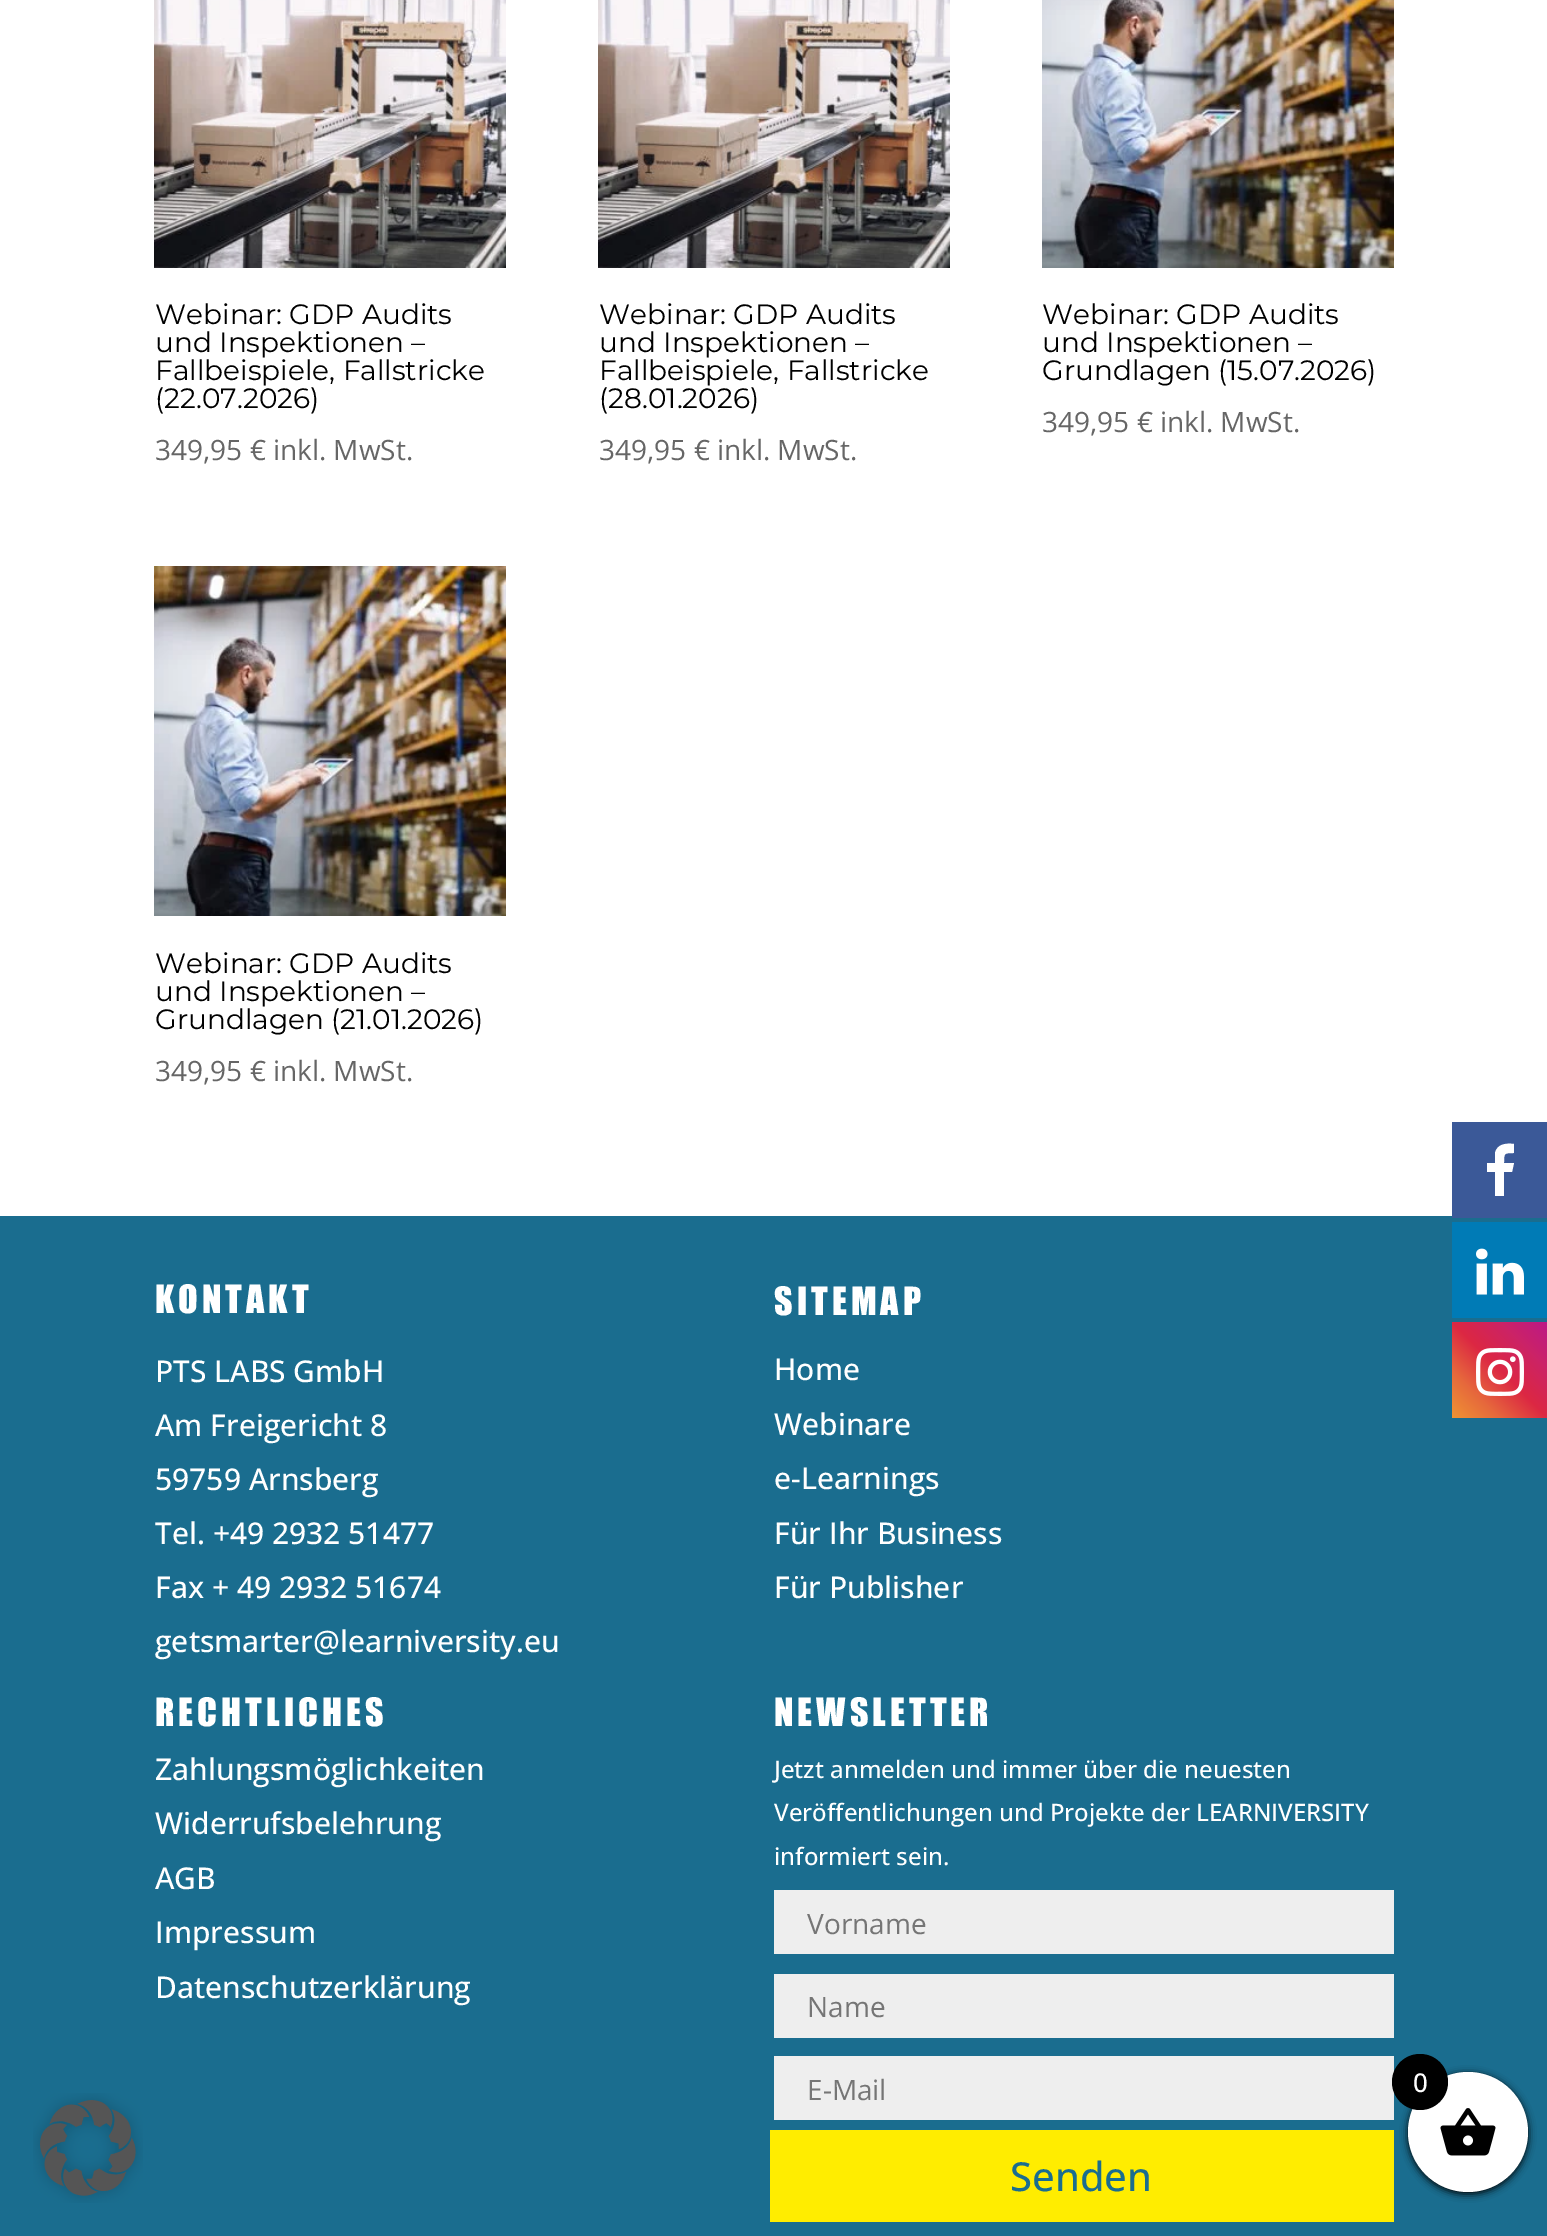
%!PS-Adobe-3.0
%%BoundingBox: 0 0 1547 2236
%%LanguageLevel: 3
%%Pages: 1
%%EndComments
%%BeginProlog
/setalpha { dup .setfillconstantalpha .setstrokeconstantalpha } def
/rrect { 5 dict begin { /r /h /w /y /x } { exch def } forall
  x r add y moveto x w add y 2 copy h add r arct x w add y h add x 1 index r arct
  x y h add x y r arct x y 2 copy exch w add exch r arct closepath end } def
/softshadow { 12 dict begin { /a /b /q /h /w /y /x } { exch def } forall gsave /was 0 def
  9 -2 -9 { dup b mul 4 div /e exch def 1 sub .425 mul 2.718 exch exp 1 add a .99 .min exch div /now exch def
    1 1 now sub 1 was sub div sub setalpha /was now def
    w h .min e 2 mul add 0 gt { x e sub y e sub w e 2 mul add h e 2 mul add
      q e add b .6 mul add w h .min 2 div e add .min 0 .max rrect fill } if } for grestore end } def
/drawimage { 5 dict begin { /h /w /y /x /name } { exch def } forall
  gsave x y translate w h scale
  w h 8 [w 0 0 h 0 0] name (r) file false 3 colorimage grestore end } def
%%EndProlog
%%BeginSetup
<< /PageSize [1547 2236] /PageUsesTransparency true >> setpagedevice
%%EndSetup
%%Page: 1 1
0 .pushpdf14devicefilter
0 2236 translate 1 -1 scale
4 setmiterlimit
1 setgray
0 0 1547 2236 rectfill
(images/1.raw) 154 0 352 268 drawimage
(images/2.raw) 598 0 352 268 drawimage
(images/3.raw) 1042 0 352 268 drawimage
(images/4.raw) 154 566 352 350 drawimage
0.102 0.427 0.561 setrgbcolor
0 1216 1547 1020 rectfill
0.933 setgray
774 1890 620 64 rectfill
774 1974 620 64 rectfill
774 2056 620 64 rectfill
1 0.929 0 setrgbcolor
770 2130 624 92 rectfill
0.231 0.349 0.596 setrgbcolor
1452 1122 95 96 rectfill
1 setgray
newpath 1514 1144 moveto 1514 1153 lineto 1504 1153 1504 1153 1504 1163 curveto 1514 1163 lineto 1512 1172 lineto 1504 1172 lineto 1504 1196 lineto 1495 1196 lineto 1495 1172 lineto 1487 1172 lineto 1487 1163 lineto 1495 1163 lineto 1495 1153 lineto 1497 1144 1506 1143 1514 1144 curveto closepath fill
0 0.482 0.714 setrgbcolor
1452 1222 95 96 rectfill
(images/5.raw) 1476 1248 48 47 drawimage
gsave newpath 1452 1322 moveto 1547 1322 lineto 1547 1418 lineto 1452 1418 lineto closepath clip newpath
<< /ShadingType 2 /ColorSpace /DeviceRGB /Coords [1452 1418 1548 1322] /Extend [true true] /Function << /FunctionType 3 /Domain [0 1] /Functions [<< /FunctionType 2 /Domain [0 1] /C0 [0.941 0.58 0.2] /C1 [0.902 0.408 0.235] /N 1 >> << /FunctionType 2 /Domain [0 1] /C0 [0.902 0.408 0.235] /C1 [0.863 0.153 0.263] /N 1 >> << /FunctionType 2 /Domain [0 1] /C0 [0.863 0.153 0.263] /C1 [0.8 0.137 0.4] /N 1 >> << /FunctionType 2 /Domain [0 1] /C0 [0.8 0.137 0.4] /C1 [0.737 0.094 0.533] /N 1 >>] /Bounds [0.25 0.5 0.75] /Encode [0 1 0 1 0 1 0 1] >> >> shfill grestore
(images/6.raw) 1476 1348 48 48 drawimage
0 setgray
1408 2074 120 120 60 4 1 softshadow
1 setgray
newpath 1468 2132 60 0 360 arc closepath fill
(images/7.raw) 1440 2108 56 48 drawimage
0 setgray
newpath 1420 2082 28 0 360 arc closepath fill
(images/8.raw) 33 2093 110 110 drawimage
/Montserrat-Regular [28 0 0 -28 0 0] selectfont
155 324 moveto (Webinar: GDP Audits) show
155 352 moveto (und Inspektionen –) show
155 380 moveto (Fallbeispiele, Fallstricke) show
155 408 moveto (\(22.07.2026\)) show
/OpenSans-Regular [28 0 0 -28 0 0] selectfont
0.4 setgray
155 460 moveto (349,95 € inkl. MwSt.) show
/Montserrat-Regular [28 0 0 -28 0 0] selectfont
0 setgray
599 324 moveto (Webinar: GDP Audits) show
599 352 moveto (und Inspektionen –) show
599 380 moveto (Fallbeispiele, Fallstricke) show
599 408 moveto (\(28.01.2026\)) show
/OpenSans-Regular [28 0 0 -28 0 0] selectfont
0.4 setgray
599 460 moveto (349,95 € inkl. MwSt.) show
/Montserrat-Regular [28 0 0 -28 0 0] selectfont
0 setgray
1042 324 moveto (Webinar: GDP Audits) show
1042 352 moveto (und Inspektionen –) show
1042 380 moveto (Grundlagen \(15.07.2026\)) show
/OpenSans-Regular [28 0 0 -28 0 0] selectfont
0.4 setgray
1042 432 moveto (349,95 € inkl. MwSt.) show
/Montserrat-Regular [28 0 0 -28 0 0] selectfont
0 setgray
155 973 moveto (Webinar: GDP Audits) show
155 1001 moveto (und Inspektionen –) show
155 1029 moveto (Grundlagen \(21.01.2026\)) show
/OpenSans-Regular [28 0 0 -28 0 0] selectfont
0.4 setgray
155 1081 moveto (349,95 € inkl. MwSt.) show
/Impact-Regular [36 0 0 -36 0 0] selectfont
1 setgray
155 1313 moveto 4 0 (KONTAKT) ashow
/OpenSans-Medium [30 0 0 -30 0 0] selectfont
155 1382 moveto (PTS LABS GmbH) show
155 1436 moveto (Am Freigericht 8) show
155 1490 moveto (59759 Arnsberg) show
155 1544 moveto (Tel. +49 2932 51477) show
155 1598 moveto (Fax + 49 2932 51674) show
155 1652 moveto (getsmarter@learniversity.eu) show
/Impact-Regular [36 0 0 -36 0 0] selectfont
774 1315 moveto 4 0 (SITEMAP) ashow
/OpenSans-Medium [30 0 0 -30 0 0] selectfont
774 1380 moveto (Home) show
774 1435 moveto (Webinare) show
774 1489 moveto (e-Learnings) show
774 1544 moveto (Für Ihr Business) show
774 1598 moveto (Für Publisher) show
/Impact-Regular [36 0 0 -36 0 0] selectfont
155 1726 moveto 4 0 (RECHTLICHES) ashow
/OpenSans-Medium [30 0 0 -30 0 0] selectfont
155 1780 moveto (Zahlungsmöglichkeiten) show
155 1834 moveto (Widerrufsbelehrung) show
155 1889 moveto (AGB) show
155 1943 moveto (Impressum) show
155 1998 moveto (Datenschutzerklärung) show
/Impact-Regular [36 0 0 -36 0 0] selectfont
774 1726 moveto 4 0 (NEWSLETTER) ashow
/OpenSans-Medium [24 0 0 -24 0 0] selectfont
774 1778 moveto (Jetzt anmelden und immer über die neuesten) show
774 1821 moveto (Veröffentlichungen und Projekte der LEARNIVERSITY) show
774 1865 moveto (informiert sein.) show
/OpenSans-Regular [28 0 0 -28 0 0] selectfont
0.459 setgray
807 1934 moveto (Vorname) show
807 2017 moveto (Name) show
807 2100 moveto (E-Mail) show
/OpenSans-Medium [40 0 0 -40 0 0] selectfont
0.102 0.427 0.561 setrgbcolor
1010 2191 moveto (Senden) show
/OpenSans-Medium [26 0 0 -26 0 0] selectfont
1 setgray
1413 2092 moveto (0) show
.poppdf14devicefilter showpage
%%EOF
